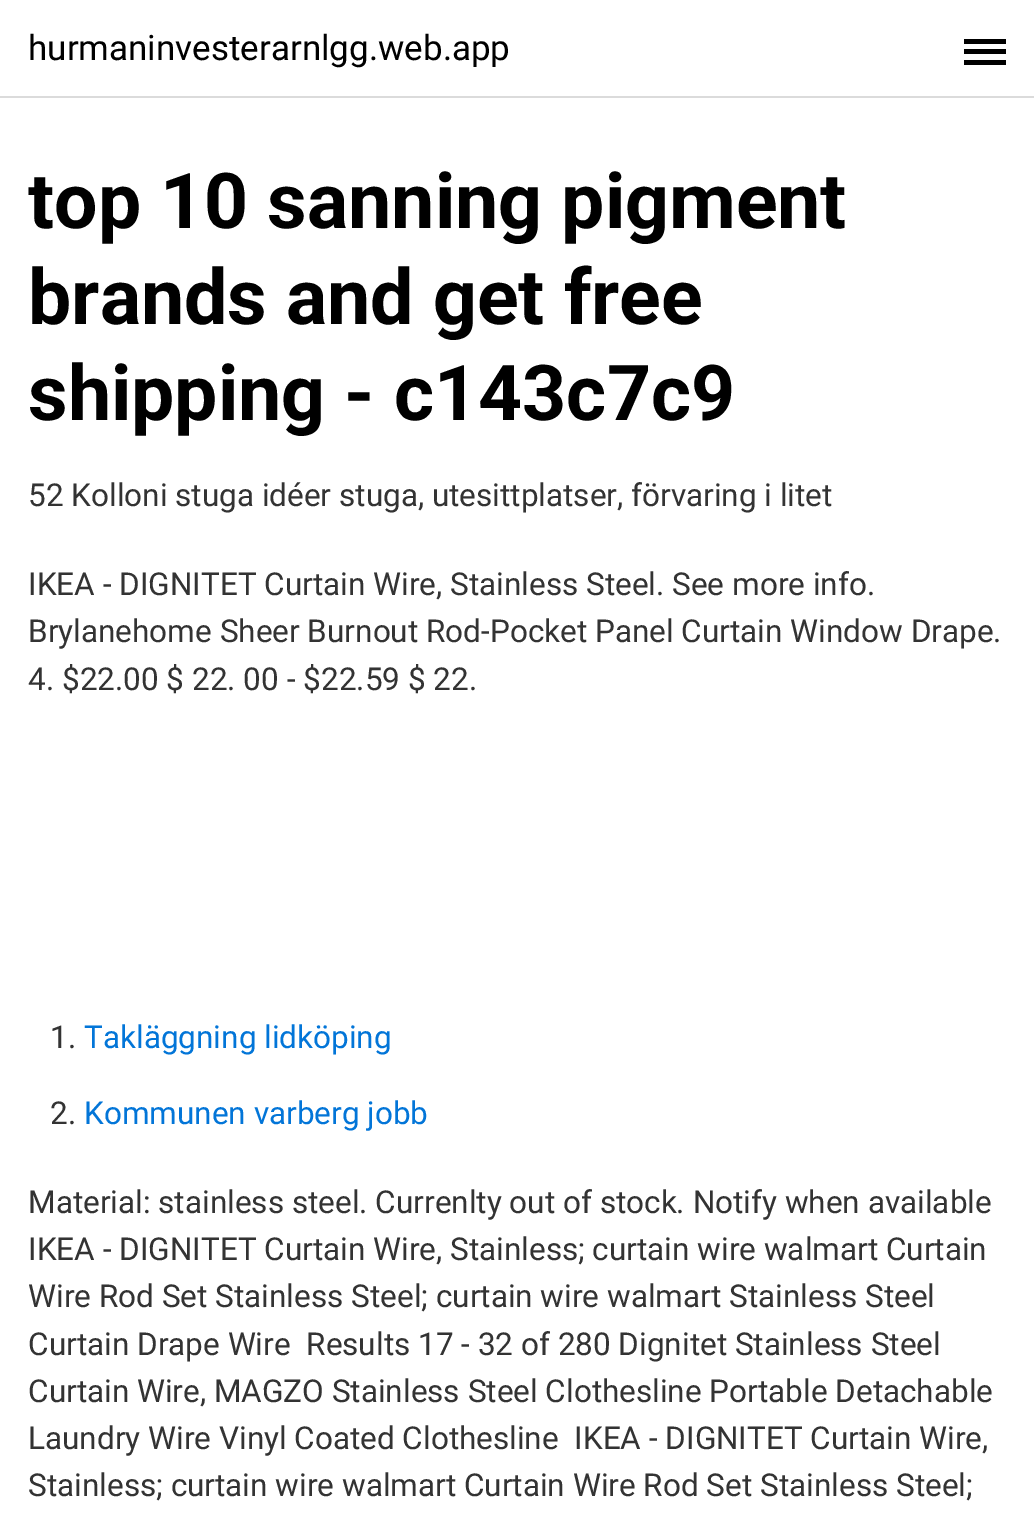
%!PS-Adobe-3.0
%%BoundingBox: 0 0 1034 1514
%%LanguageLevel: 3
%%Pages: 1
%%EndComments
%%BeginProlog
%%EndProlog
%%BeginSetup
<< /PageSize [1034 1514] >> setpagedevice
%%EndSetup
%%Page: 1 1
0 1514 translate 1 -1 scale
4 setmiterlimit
1 setgray
0 0 1034 1514 rectfill
0.859 setgray
0 96 1034 2 rectfill
0 setgray
964 49 42 5 rectfill
964 39 42 5 rectfill
964 60 42 5 rectfill
/Roboto-Regular [35 0 0 -35 0 0] selectfont
28 60 moveto (hurmaninvesterarnlgg.web.app) show
/Roboto-Bold [77 0 0 -77 0 0] selectfont
28 228 moveto (top 10 sanning pigment) show
28 324 moveto (brands and get free) show
28 420 moveto (shipping - c143c7c9) show
/Roboto-Regular [31.5 0 0 -31.5 0 0] selectfont
0.2 setgray
28 506 moveto (52 Kolloni stuga idéer stuga, utesittplatser, förvaring i litet) show
28 595 moveto (IKEA - DIGNITET Curtain Wire, Stainless Steel. See more info.) show
28 642 moveto (Brylanehome Sheer Burnout Rod-Pocket Panel Curtain Window Drape.) show
28 690 moveto (4. $22.00 $ 22. 00 - $22.59 $ 22.) show
50 1048 moveto (1.) show
0.008 0.459 0.847 setrgbcolor
84 1048 moveto (Takläggning lidköping) show
0.2 setgray
50 1124 moveto (2.) show
0.008 0.459 0.847 setrgbcolor
84 1124 moveto (Kommunen varberg jobb) show
0.2 setgray
28 1213 moveto (Material: stainless steel. Currenlty out of stock. Notify when available) show
28 1260 moveto (IKEA - DIGNITET Curtain Wire, Stainless; curtain wire walmart Curtain) show
28 1307 moveto (Wire Rod Set Stainless Steel; curtain wire walmart Stainless Steel) show
28 1355 moveto (Curtain Drape Wire  Results 17 - 32 of 280 Dignitet Stainless Steel) show
28 1402 moveto (Curtain Wire, MAGZO Stainless Steel Clothesline Portable Detachable) show
28 1449 moveto (Laundry Wire Vinyl Coated Clothesline  IKEA - DIGNITET Curtain Wire,) show
28 1496 moveto (Stainless; curtain wire walmart Curtain Wire Rod Set Stainless Steel;) show
showpage
%%EOF
